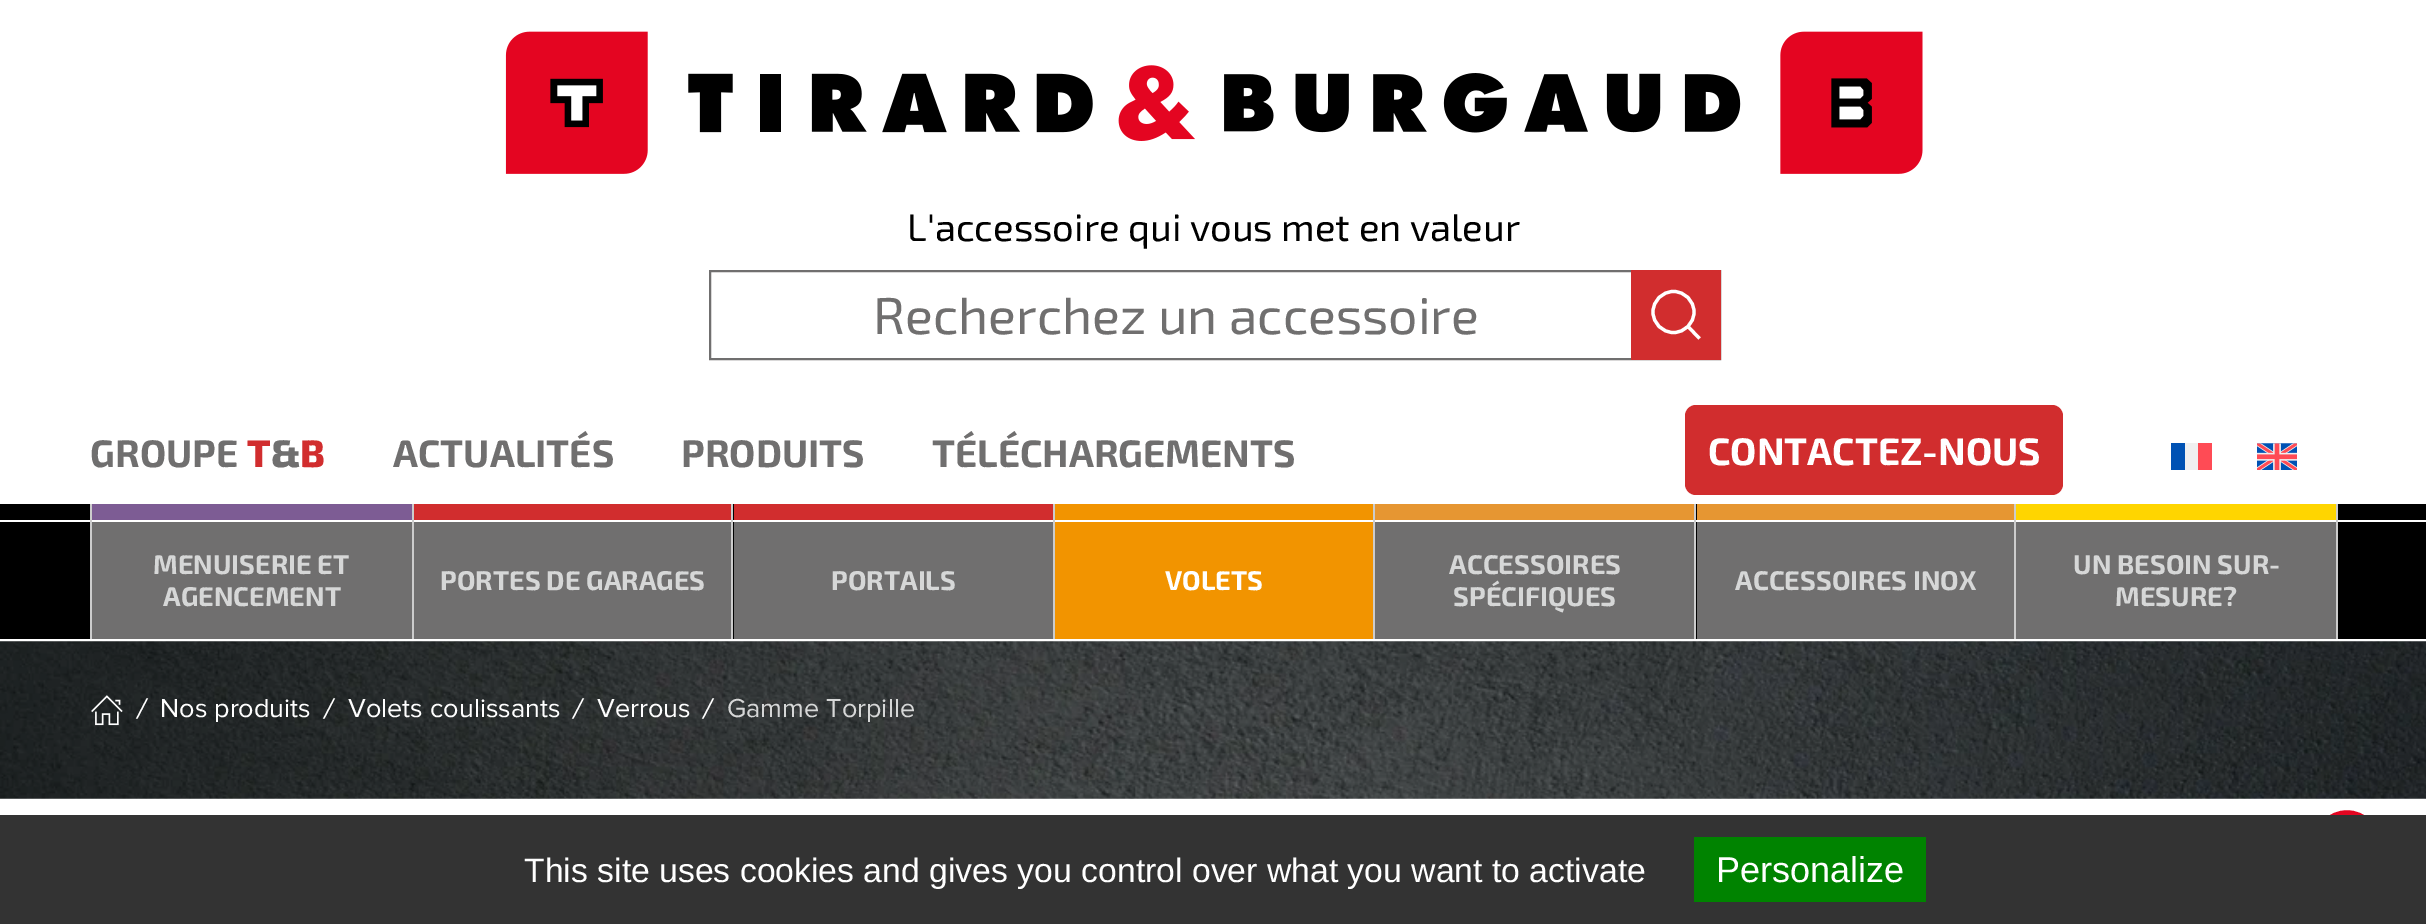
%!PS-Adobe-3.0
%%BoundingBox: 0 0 2426 924
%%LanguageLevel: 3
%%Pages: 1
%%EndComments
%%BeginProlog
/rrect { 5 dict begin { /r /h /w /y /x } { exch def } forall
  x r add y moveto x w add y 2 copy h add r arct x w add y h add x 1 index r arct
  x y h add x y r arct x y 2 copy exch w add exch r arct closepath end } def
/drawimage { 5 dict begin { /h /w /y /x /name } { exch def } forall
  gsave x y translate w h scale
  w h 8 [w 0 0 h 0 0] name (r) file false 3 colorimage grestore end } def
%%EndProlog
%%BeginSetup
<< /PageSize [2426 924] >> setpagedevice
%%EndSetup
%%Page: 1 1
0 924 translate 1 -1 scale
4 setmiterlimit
1 setgray
0 0 2426 924 rectfill
(images/1.raw) 505 31 1418 143 drawimage
0.439 0.435 0.435 setrgbcolor
2 setlinewidth
710 271 1010 88 rectstroke
0.82 0.176 0.18 setrgbcolor
1631 270 90 90 rectfill
1 setgray
3.2 setlinewidth
newpath 1673.5 312 20.5 0 360 arc closepath stroke
newpath 1688 326.5 moveto 1699.5 338.5 lineto closepath stroke
0.82 0.176 0.18 setrgbcolor
1685 405 378 90 11 rrect fill
0 0.322 0.706 setrgbcolor
2171 443 14 27 rectfill
0.941 setgray
2185 443 13 27 rectfill
1 0.294 0.333 setrgbcolor
2198 443 14 27 rectfill
(images/2.raw) 2257 443 40 27 drawimage
0 setgray
0 504 2426 135 rectfill
1 setgray
0 520 2426 2 rectfill
0.8 setgray
2336 504 2 135 rectfill
90 504 2 135 rectfill
0.49 0.361 0.58 setrgbcolor
92 504 320 16 rectfill
0.439 0.435 0.435 setrgbcolor
92 522 320 117 rectfill
0.8 setgray
412 504 2 135 rectfill
0.82 0.176 0.18 setrgbcolor
414 504 317 16 rectfill
0.439 0.435 0.435 setrgbcolor
414 522 317 117 rectfill
0.8 setgray
731 504 2 135 rectfill
0.82 0.176 0.18 setrgbcolor
734 504 319 16 rectfill
0.439 0.435 0.435 setrgbcolor
734 522 319 117 rectfill
0.8 setgray
1053 504 2 135 rectfill
0.949 0.58 0 setrgbcolor
1055 504 318 16 rectfill
1055 522 318 117 rectfill
0.8 setgray
1373 504 2 135 rectfill
0.902 0.588 0.196 setrgbcolor
1375 504 319 16 rectfill
0.439 0.435 0.435 setrgbcolor
1375 522 319 117 rectfill
0.8 setgray
1694 504 2 135 rectfill
0.902 0.588 0.196 setrgbcolor
1697 504 317 16 rectfill
0.439 0.435 0.435 setrgbcolor
1697 522 317 117 rectfill
0.8 setgray
2014 504 2 135 rectfill
1 0.835 0 setrgbcolor
2016 504 320 16 rectfill
0.439 0.435 0.435 setrgbcolor
2016 522 320 117 rectfill
(images/3.raw) 0 641 2426 158 drawimage
(images/4.raw) 91 695 32 31 drawimage
0.894 0.02 0.129 setrgbcolor
newpath 2347 844 35 0 360 arc closepath gsave fill grestore
1 setgray
2 setlinewidth
stroke
0.2 setgray
0 815 2426 109 rectfill
0 0.514 0 setrgbcolor
1694 837 232 65 rectfill
/Exo2-Regular [38.25 0 0 -38.25 0 0] selectfont
0 setgray
907 241 moveto (L'accessoire qui vous met en valeur) show
/Exo2-Regular [51.75 0 0 -51.75 0 0] selectfont
0.439 0.435 0.435 setrgbcolor
873 334 moveto (Recherchez un accessoire) show
/Exo2-Bold [38.25 0 0 -38.25 0 0] selectfont
90 467 moveto (GROUPE) show
/Exo2-ExtraBold [38.25 0 0 -38.25 0 0] selectfont
0.82 0.176 0.18 setrgbcolor
247 467 moveto (T) show
0.439 0.435 0.435 setrgbcolor
271 467 moveto (&) show
0.82 0.176 0.18 setrgbcolor
300 467 moveto (B) show
/Exo2-Bold [38.25 0 0 -38.25 0 0] selectfont
0.439 0.435 0.435 setrgbcolor
393 467 moveto (ACTUALITÉS) show
681 467 moveto (PRODUITS) show
932 467 moveto (TÉLÉCHARGEMENTS) show
1 setgray
1708 465 moveto (CONTACTEZ-NOUS) show
/Exo2-Bold [27 0 0 -27 0 0] selectfont
0.839 0.843 0.843 setrgbcolor
153 574 moveto (MENUISERIE ET) show
163 606 moveto (AGENCEMENT) show
440 590 moveto (PORTES DE GARAGES) show
831 590 moveto (PORTAILS) show
1 setgray
1165 590 moveto (VOLETS) show
0.839 0.843 0.843 setrgbcolor
1449 574 moveto (ACCESSOIRES) show
1453 606 moveto (SPÉCIFIQUES) show
1735 590 moveto (ACCESSOIRES INOX) show
2073 574 moveto (UN BESOIN SUR-) show
2115 606 moveto (MESURE?) show
/Exo2-Regular [27 0 0 -27 0 0] selectfont
1 setgray
135 717 moveto (/) show
/ProximaNova-Regular [27 0 0 -27 0 0] selectfont
160 717 moveto (Nos produits) show
/Exo2-Regular [27 0 0 -27 0 0] selectfont
322 717 moveto (/) show
/ProximaNova-Regular [27 0 0 -27 0 0] selectfont
348 717 moveto (Volets coulissants) show
/Exo2-Regular [27 0 0 -27 0 0] selectfont
571 717 moveto (/) show
/ProximaNova-Regular [27 0 0 -27 0 0] selectfont
597 717 moveto (Verrous) show
/Exo2-Regular [27 0 0 -27 0 0] selectfont
701 717 moveto (/) show
/ProximaNova-Regular [27 0 0 -27 0 0] selectfont
0.839 0.843 0.843 setrgbcolor
727 717 moveto (Gamme Torpille) show
/LiberationSans-Regular [33.75 0 0 -33.75 0 0] selectfont
1 setgray
524 882 moveto (This site uses cookies and gives you control over what you want to activate) show
/LiberationSans-Regular [36 0 0 -36 0 0] selectfont
1716 882 moveto (Personalize) show
showpage
%%EOF
